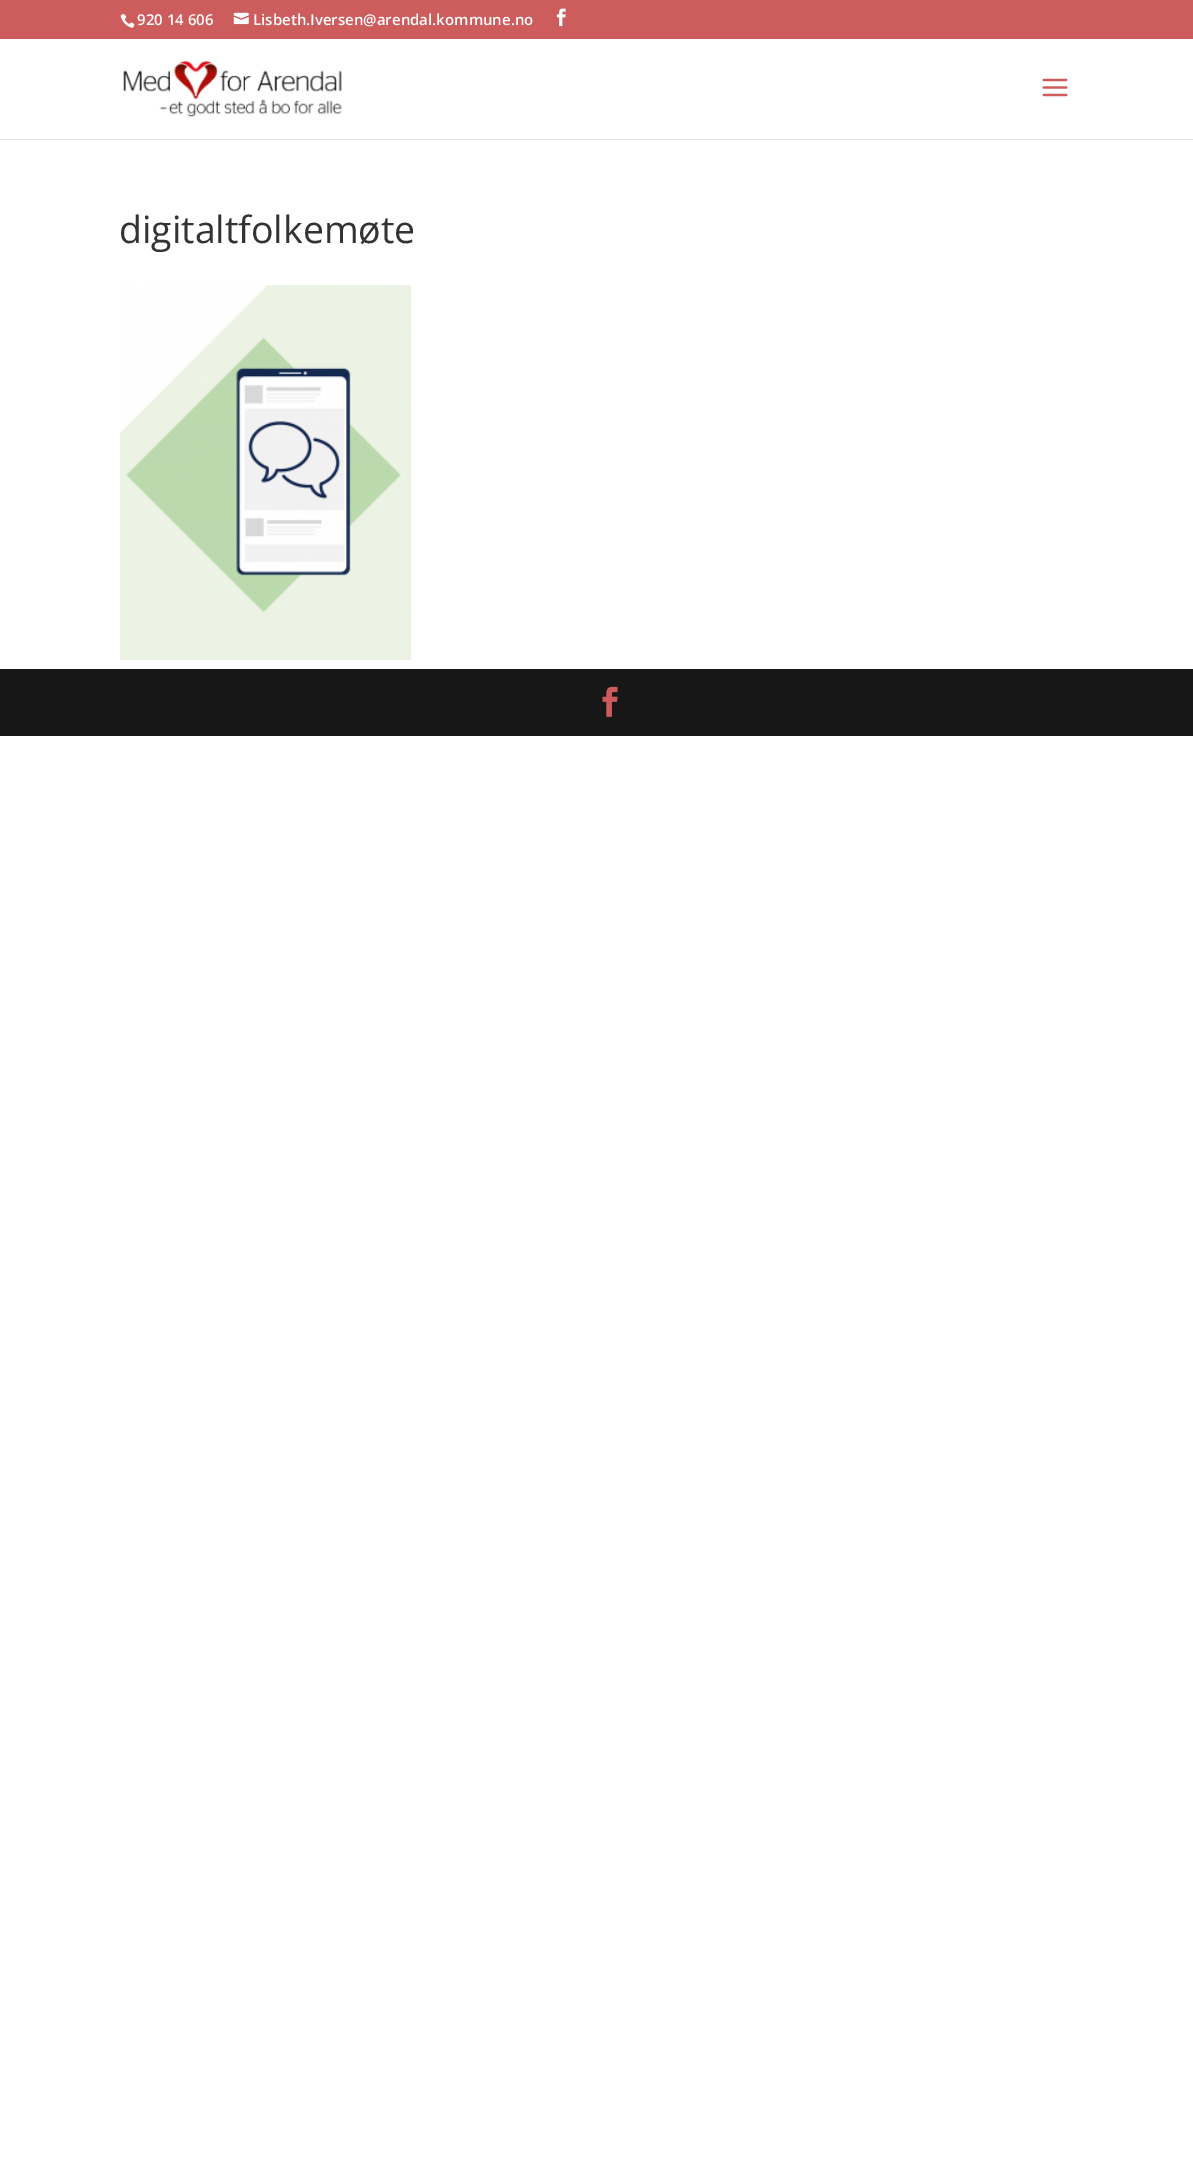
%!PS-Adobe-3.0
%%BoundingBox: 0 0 1193 2182
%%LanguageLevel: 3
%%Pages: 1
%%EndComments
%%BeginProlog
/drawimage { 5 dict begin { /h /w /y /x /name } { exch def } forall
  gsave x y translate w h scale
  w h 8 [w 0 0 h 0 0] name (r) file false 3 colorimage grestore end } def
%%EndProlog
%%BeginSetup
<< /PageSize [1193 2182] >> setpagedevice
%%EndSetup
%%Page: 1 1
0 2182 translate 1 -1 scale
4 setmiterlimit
1 setgray
0 0 1193 2182 rectfill
0.804 0.361 0.361 setrgbcolor
0 0 1193 39 rectfill
(images/1.raw) 120 14 15 14 drawimage
(images/2.raw) 233 12 16 13 drawimage
(images/3.raw) 556 8 10 19 drawimage
0.902 setgray
newpath 0 139 moveto 0 140 lineto 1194 140 lineto 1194 40 lineto 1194 139 lineto closepath fill
(images/4.raw) 123 61 219 56 drawimage
(images/5.raw) 1042 78 26 19 drawimage
(images/6.raw) 120 285 292 375 drawimage
0.09 setgray
0 669 1193 67 rectfill
(images/7.raw) 602 686 16 31 drawimage
/OpenSans-SemiBold [15 0 0 -15 0 0] selectfont
1 setgray
137 25 moveto (920 14 606) show
253 25 moveto (Lisbeth.Iversen@arendal.kommune.no) show
/OpenSans-Regular [37.5 0 0 -37.5 0 0] selectfont
0.2 setgray
119 243 moveto (digitaltfolkemøte) show
showpage
%%EOF
